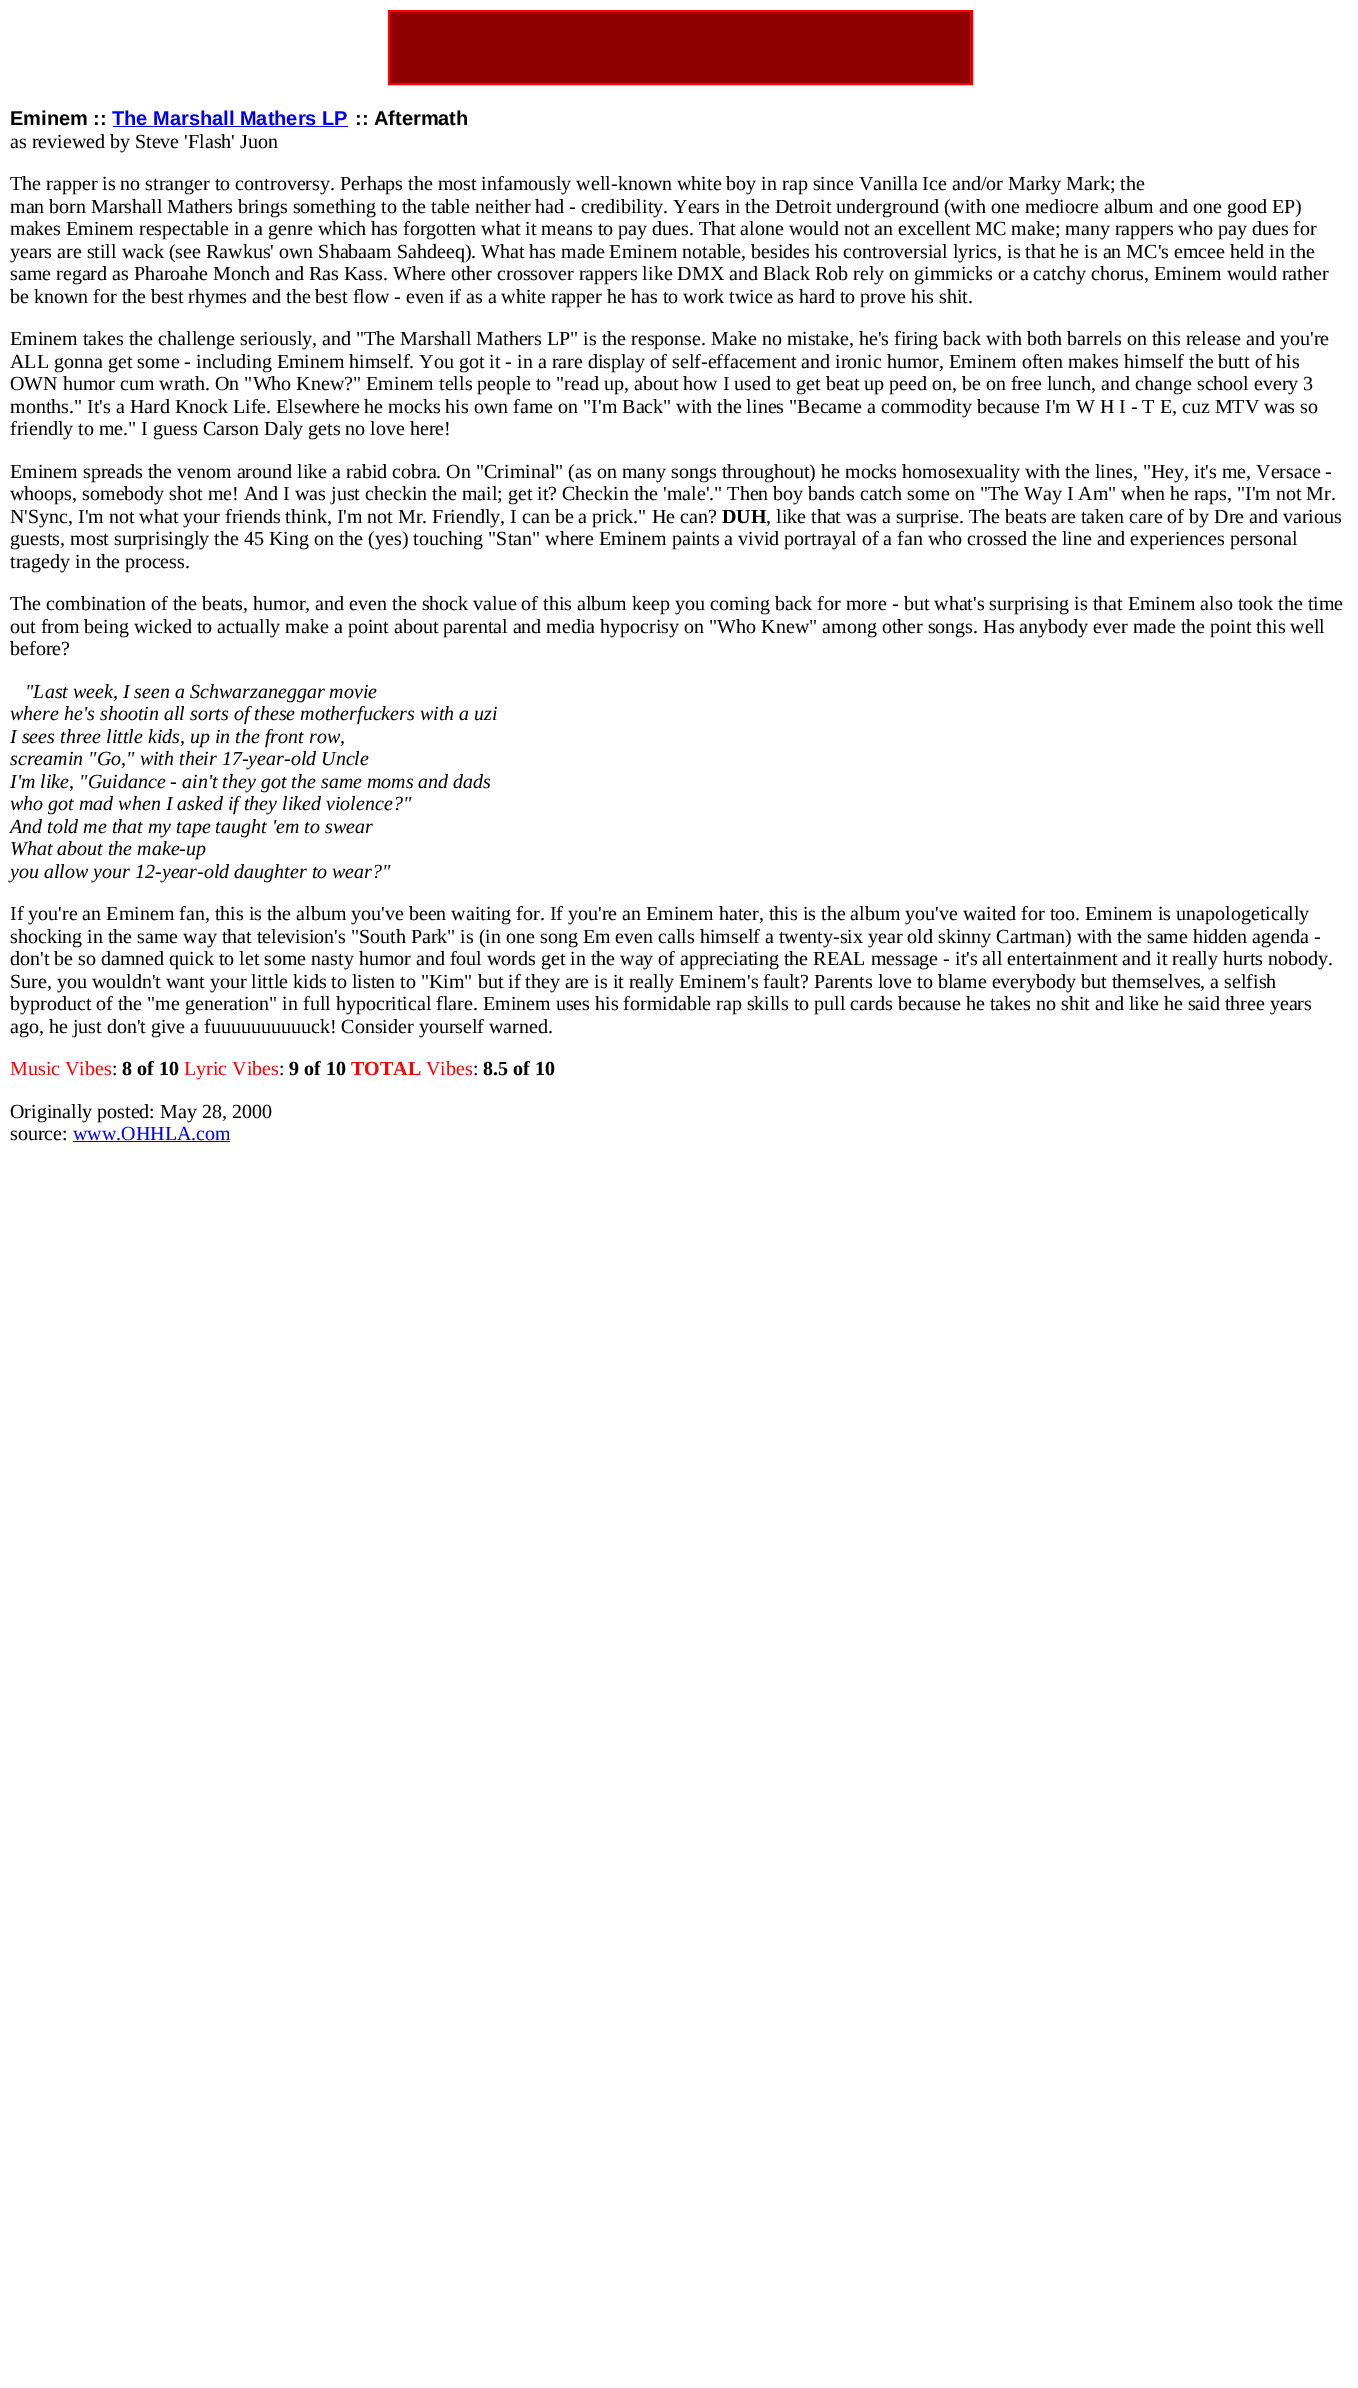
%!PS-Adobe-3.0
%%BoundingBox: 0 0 1358 2388
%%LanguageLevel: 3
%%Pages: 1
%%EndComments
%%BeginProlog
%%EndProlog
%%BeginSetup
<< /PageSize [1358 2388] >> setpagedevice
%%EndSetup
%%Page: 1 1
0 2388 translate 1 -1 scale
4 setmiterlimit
1 setgray
0 0 1358 2388 rectfill
0.565 0 0 setrgbcolor
390 11 582 73 rectfill
1 0 0 setrgbcolor
388.5 10.5 584 74 rectstroke
389.5 11.5 581 72 rectstroke
0 0 0.933 setrgbcolor
113 126 235 1 rectfill
73 1141 157 1 rectfill
/LiberationSans-Bold [20 0 0 -20 0 0] selectfont
0 setgray
10 125 moveto (Eminem ::) show
0 0 0.933 setrgbcolor
112 125 moveto (The Marshall Mathers LP) show
0 setgray
355 125 moveto (:: Aftermath) show
/LiberationSerif-Regular [20 0 0 -20 0 0] selectfont
10 148 moveto (as reviewed by Steve 'Flash' Juon) show
10 190 moveto (The rapper is no stranger to controversy. Perhaps the most infamously well-known white boy in rap since Vanilla Ice and/or Marky Mark; the) show
10 213 moveto (man born Marshall Mathers brings something to the table neither had - credibility. Years in the Detroit underground \(with one mediocre album and one good EP\)) show
10 235 moveto (makes Eminem respectable in a genre which has forgotten what it means to pay dues. That alone would not an excellent MC make; many rappers who pay dues for) show
10 258 moveto (years are still wack \(see Rawkus' own Shabaam Sahdeeq\). What has made Eminem notable, besides his controversial lyrics, is that he is an MC's emcee held in the) show
10 280 moveto (same regard as Pharoahe Monch and Ras Kass. Where other crossover rappers like DMX and Black Rob rely on gimmicks or a catchy chorus, Eminem would rather) show
10 303 moveto (be known for the best rhymes and the best flow - even if as a white rapper he has to work twice as hard to prove his shit.) show
10 345 moveto (Eminem takes the challenge seriously, and "The Marshall Mathers LP" is the response. Make no mistake, he's firing back with both barrels on this release and you're) show
10 368 moveto (ALL gonna get some - including Eminem himself. You got it - in a rare display of self-effacement and ironic humor, Eminem often makes himself the butt of his) show
10 390 moveto (OWN humor cum wrath. On "Who Knew?" Eminem tells people to "read up, about how I used to get beat up peed on, be on free lunch, and change school every 3) show
10 413 moveto (months." It's a Hard Knock Life. Elsewhere he mocks his own fame on "I'm Back" with the lines "Became a commodity because I'm W H I - T E, cuz MTV was so) show
10 435 moveto (friendly to me." I guess Carson Daly gets no love here!) show
10 478 moveto (Eminem spreads the venom around like a rabid cobra. On "Criminal" \(as on many songs throughout\) he mocks homosexuality with the lines, "Hey, it's me, Versace -) show
10 500 moveto (whoops, somebody shot me! And I was just checkin the mail; get it? Checkin the 'male'." Then boy bands catch some on "The Way I Am" when he raps, "I'm not Mr.) show
10 523 moveto (N'Sync, I'm not what your friends think, I'm not Mr. Friendly, I can be a prick." He can?) show
/LiberationSerif-Bold [20 0 0 -20 0 0] selectfont
722 523 moveto (DUH) show
/LiberationSerif-Regular [20 0 0 -20 0 0] selectfont
766 523 moveto (, like that was a surprise. The beats are taken care of by Dre and various) show
10 545 moveto (guests, most surprisingly the 45 King on the \(yes\) touching "Stan" where Eminem paints a vivid portrayal of a fan who crossed the line and experiences personal) show
10 568 moveto (tragedy in the process.) show
10 610 moveto (The combination of the beats, humor, and even the shock value of this album keep you coming back for more - but what's surprising is that Eminem also took the time) show
10 633 moveto (out from being wicked to actually make a point about parental and media hypocrisy on "Who Knew" among other songs. Has anybody ever made the point this well) show
10 655 moveto (before?) show
/LiberationSerif-Italic [20 0 0 -20 0 0] selectfont
25 698 moveto ("Last week, I seen a Schwarzaneggar movie) show
10 720 moveto (where he's shootin all sorts of these motherfuckers with a uzi) show
10 743 moveto (I sees three little kids, up in the front row,) show
10 765 moveto (screamin "Go," with their 17-year-old Uncle) show
10 788 moveto (I'm like, "Guidance - ain't they got the same moms and dads) show
10 810 moveto (who got mad when I asked if they liked violence?") show
10 833 moveto (And told me that my tape taught 'em to swear) show
10 855 moveto (What about the make-up) show
10 878 moveto (you allow your 12-year-old daughter to wear?") show
/LiberationSerif-Regular [20 0 0 -20 0 0] selectfont
10 920 moveto (If you're an Eminem fan, this is the album you've been waiting for. If you're an Eminem hater, this is the album you've waited for too. Eminem is unapologetically) show
10 943 moveto (shocking in the same way that television's "South Park" is \(in one song Em even calls himself a twenty-six year old skinny Cartman\) with the same hidden agenda -) show
10 965 moveto (don't be so damned quick to let some nasty humor and foul words get in the way of appreciating the REAL message - it's all entertainment and it really hurts nobody.) show
10 988 moveto (Sure, you wouldn't want your little kids to listen to "Kim" but if they are is it really Eminem's fault? Parents love to blame everybody but themselves, a selfish) show
10 1010 moveto (byproduct of the "me generation" in full hypocritical flare. Eminem uses his formidable rap skills to pull cards because he takes no shit and like he said three years) show
10 1033 moveto (ago, he just don't give a fuuuuuuuuuuck! Consider yourself warned.) show
1 0 0 setrgbcolor
10 1075 moveto (Music Vibes) show
0 setgray
112 1075 moveto (:) show
/LiberationSerif-Bold [20 0 0 -20 0 0] selectfont
122 1075 moveto (8 of 10) show
/LiberationSerif-Regular [20 0 0 -20 0 0] selectfont
1 0 0 setrgbcolor
184 1075 moveto (Lyric Vibes) show
0 setgray
279 1075 moveto (:) show
/LiberationSerif-Bold [20 0 0 -20 0 0] selectfont
289 1075 moveto (9 of 10) show
1 0 0 setrgbcolor
351 1075 moveto (TOTAL) show
/LiberationSerif-Regular [20 0 0 -20 0 0] selectfont
426 1075 moveto (Vibes) show
0 setgray
473 1075 moveto (:) show
/LiberationSerif-Bold [20 0 0 -20 0 0] selectfont
483 1075 moveto (8.5 of 10) show
/LiberationSerif-Regular [20 0 0 -20 0 0] selectfont
10 1118 moveto (Originally posted: May 28, 2000) show
10 1140 moveto (source:) show
0 0 0.933 setrgbcolor
73 1140 moveto (www.OHHLA.com) show
showpage
%%EOF
